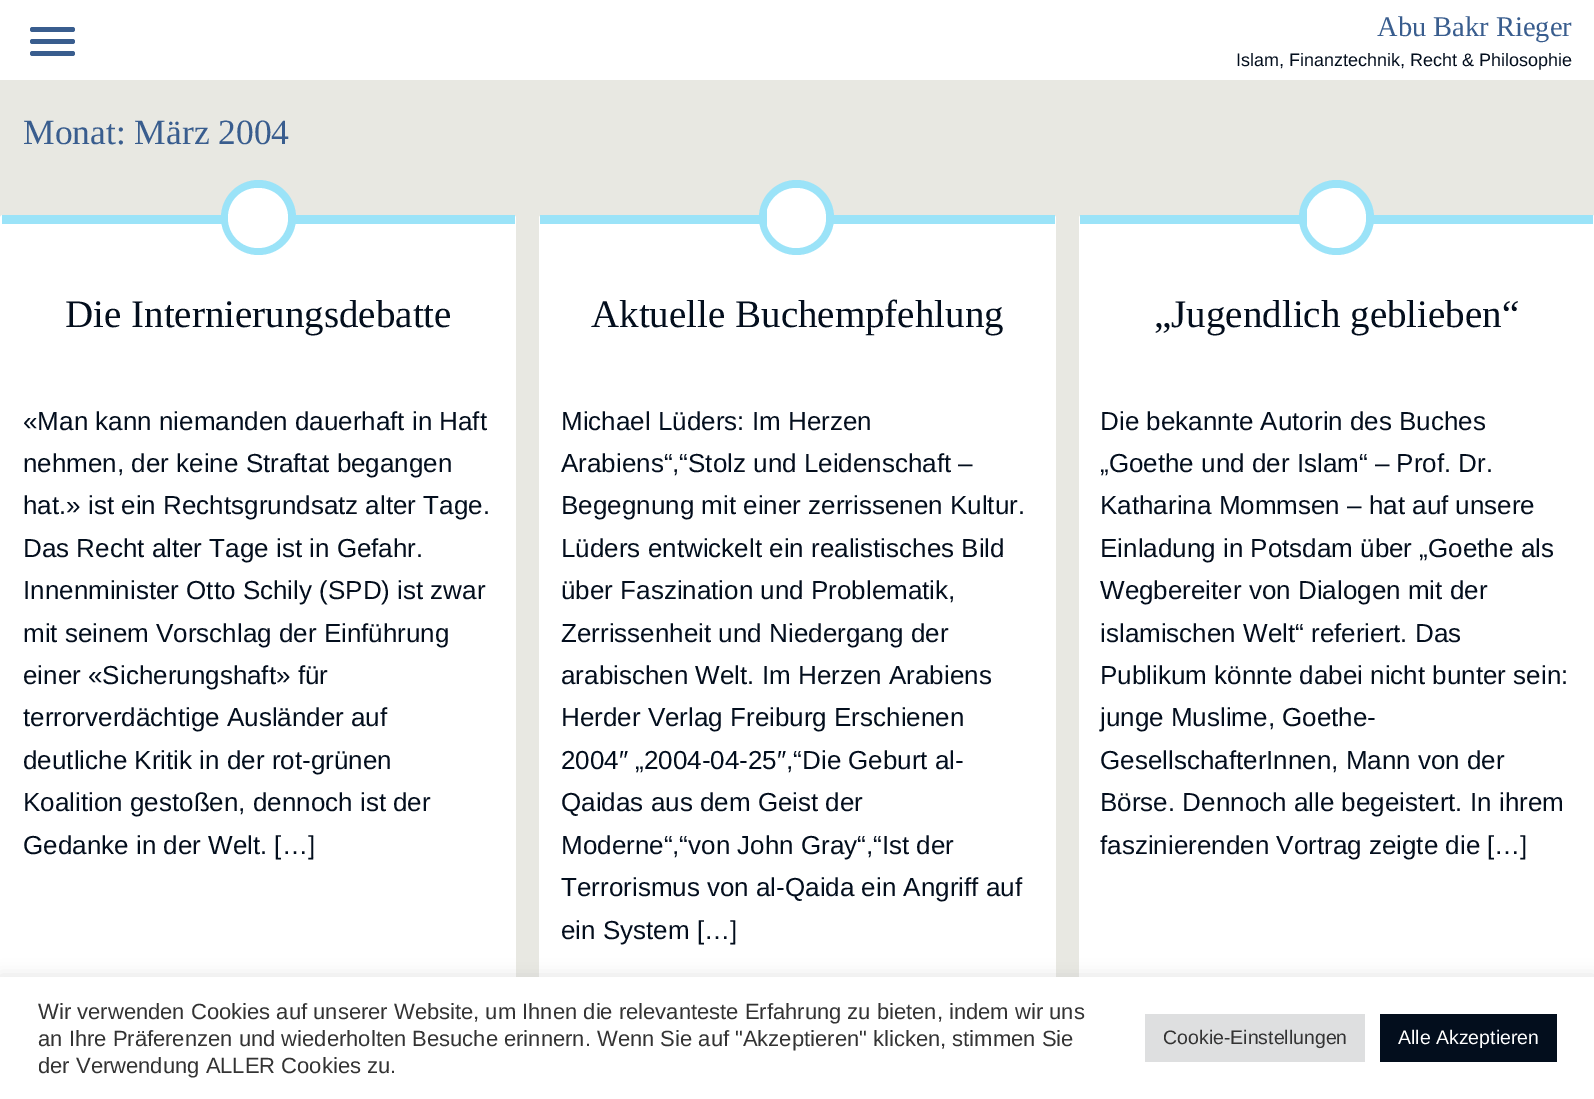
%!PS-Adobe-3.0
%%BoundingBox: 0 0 1594 1099
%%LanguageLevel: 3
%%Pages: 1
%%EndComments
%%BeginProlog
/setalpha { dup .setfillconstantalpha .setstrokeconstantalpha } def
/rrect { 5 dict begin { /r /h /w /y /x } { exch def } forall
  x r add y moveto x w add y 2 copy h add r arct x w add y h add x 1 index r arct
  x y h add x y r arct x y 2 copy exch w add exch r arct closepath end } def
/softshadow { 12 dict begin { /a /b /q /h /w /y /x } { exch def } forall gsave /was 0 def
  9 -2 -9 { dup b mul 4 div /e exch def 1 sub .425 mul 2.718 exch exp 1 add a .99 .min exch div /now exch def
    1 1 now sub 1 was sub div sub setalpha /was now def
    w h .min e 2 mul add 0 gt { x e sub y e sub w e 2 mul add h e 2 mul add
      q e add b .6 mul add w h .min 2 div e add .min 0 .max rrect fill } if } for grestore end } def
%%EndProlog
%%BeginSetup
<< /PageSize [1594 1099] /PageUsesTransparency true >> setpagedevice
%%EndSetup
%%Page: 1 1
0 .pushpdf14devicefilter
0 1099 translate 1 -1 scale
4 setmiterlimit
0.91 0.91 0.886 setrgbcolor
0 0 1594 1099 rectfill
1 setgray
0 0 1594 80 rectfill
0.224 0.365 0.557 setrgbcolor
30 51 45 5 2.5 rrect fill
30 27 45 5 2.5 rrect fill
30 39 45 5 2.5 rrect fill
1 setgray
0 215 516 834 3 rrect fill
0.608 0.89 0.973 setrgbcolor
2 215 513 9 rectfill
newpath 258.5 217.5 37.5 0 360 arc closepath fill
1 setgray
newpath 258 188 moveto 241 188 228 201 228 218 curveto 228 234 241 248 258 248 curveto 275 248 288 234 288 218 curveto 288 201 275 188 258 188 curveto closepath fill
539 215 517 834 3 rrect fill
0.608 0.89 0.973 setrgbcolor
540 215 515 9 rectfill
newpath 796.5 217.5 37.5 0 360 arc closepath fill
gsave
767 188 60 60 rectclip
1 setgray
newpath 796 188 moveto 780 188 766 201 766 218 curveto 766 234 780 248 796 248 curveto 813 248 826 234 826 218 curveto 826 201 813 188 796 188 curveto closepath fill
grestore
1 setgray
1079 215 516 834 3 rrect fill
0.608 0.89 0.973 setrgbcolor
1080 215 513 9 rectfill
newpath 1336.5 217.5 37.5 0 360 arc closepath fill
gsave
1307 188 60 60 rectclip
1 setgray
newpath 1336 188 moveto 1320 188 1306 201 1306 218 curveto 1306 234 1320 248 1336 248 curveto 1353 248 1366 234 1366 218 curveto 1366 201 1353 188 1336 188 curveto closepath fill
grestore
0.675 0.671 0.671 setrgbcolor
0 975 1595 123 0 7.5 0.3 softshadow
1 setgray
0 977 1594 122 rectfill
0.871 0.875 0.878 setrgbcolor
1145 1014 220 48 rectfill
0.012 0.055 0.114 setrgbcolor
1380 1014 177 48 rectfill
/LiberationSerif-Regular [28.5 0 0 -28.5 0 0] selectfont
0.224 0.365 0.557 setrgbcolor
1377 36 moveto (Abu Bakr Rieger) show
/LiberationSans-Regular [18 0 0 -18 0 0] selectfont
0.012 0.055 0.114 setrgbcolor
1236 66 moveto (Islam, Finanztechnik, Recht & Philosophie) show
/LiberationSerif-Regular [35.5 0 0 -35.5 0 0] selectfont
0.224 0.365 0.557 setrgbcolor
23 144 moveto (Monat: März 2004) show
/LiberationSerif-Regular [39 0 0 -39 0 0] selectfont
0.012 0.055 0.114 setrgbcolor
65 327 moveto (Die Internierungsdebatte) show
/LiberationSans-Regular [26 0 0 -26 0 0] selectfont
23 430 moveto («Man kann niemanden dauerhaft in Haft) show
23 472 moveto (nehmen, der keine Straftat begangen) show
23 514 moveto (hat.» ist ein Rechtsgrundsatz alter Tage.) show
23 557 moveto (Das Recht alter Tage ist in Gefahr.) show
23 599 moveto (Innenminister Otto Schily \(SPD\) ist zwar) show
23 642 moveto (mit seinem Vorschlag der Einführung) show
23 684 moveto (einer «Sicherungshaft» für) show
23 726 moveto (terrorverdächtige Ausländer auf) show
23 769 moveto (deutliche Kritik in der rot-grünen) show
23 811 moveto (Koalition gestoßen, dennoch ist der) show
23 854 moveto (Gedanke in der Welt. […]) show
/LiberationSerif-Regular [39 0 0 -39 0 0] selectfont
591 327 moveto (Aktuelle Buchempfehlung) show
/LiberationSans-Regular [26 0 0 -26 0 0] selectfont
561 430 moveto (Michael Lüders: Im Herzen) show
561 472 moveto (Arabiens“,“Stolz und Leidenschaft –) show
561 514 moveto (Begegnung mit einer zerrissenen Kultur.) show
561 557 moveto (Lüders entwickelt ein realistisches Bild) show
561 599 moveto (über Faszination und Problematik,) show
561 642 moveto (Zerrissenheit und Niedergang der) show
561 684 moveto (arabischen Welt. Im Herzen Arabiens) show
561 726 moveto (Herder Verlag Freiburg Erschienen) show
561 769 moveto (2004″ „2004-04-25″,“Die Geburt al-) show
561 811 moveto (Qaidas aus dem Geist der) show
561 854 moveto (Moderne“,“von John Gray“,“Ist der) show
561 896 moveto (Terrorismus von al-Qaida ein Angriff auf) show
561 939 moveto (ein System […]) show
/LiberationSerif-Regular [39 0 0 -39 0 0] selectfont
1154 327 moveto („Jugendlich geblieben“) show
/LiberationSans-Regular [26 0 0 -26 0 0] selectfont
1100 430 moveto (Die bekannte Autorin des Buches) show
1100 472 moveto („Goethe und der Islam“ – Prof. Dr.) show
1100 514 moveto (Katharina Mommsen – hat auf unsere) show
1100 557 moveto (Einladung in Potsdam über „Goethe als) show
1100 599 moveto (Wegbereiter von Dialogen mit der) show
1100 642 moveto (islamischen Welt“ referiert. Das) show
1100 684 moveto (Publikum könnte dabei nicht bunter sein:) show
1100 726 moveto (junge Muslime, Goethe-) show
1100 769 moveto (GesellschafterInnen, Mann von der) show
1100 811 moveto (Börse. Dennoch alle begeistert. In ihrem) show
1100 854 moveto (faszinierenden Vortrag zeigte die […]) show
/LiberationSans-Regular [22 0 0 -22 0 0] selectfont
0.2 setgray
38 1019 moveto (Wir verwenden Cookies auf unserer Website, um Ihnen die relevanteste Erfahrung zu bieten, indem wir uns) show
38 1046 moveto (an Ihre Präferenzen und wiederholten Besuche erinnern. Wenn Sie auf "Akzeptieren" klicken, stimmen Sie) show
38 1073 moveto (der Verwendung ALLER Cookies zu.) show
/LiberationSans-Regular [19.5 0 0 -19.5 0 0] selectfont
1163 1044 moveto (Cookie-Einstellungen) show
1 setgray
1398 1044 moveto (Alle Akzeptieren) show
.poppdf14devicefilter showpage
%%EOF
